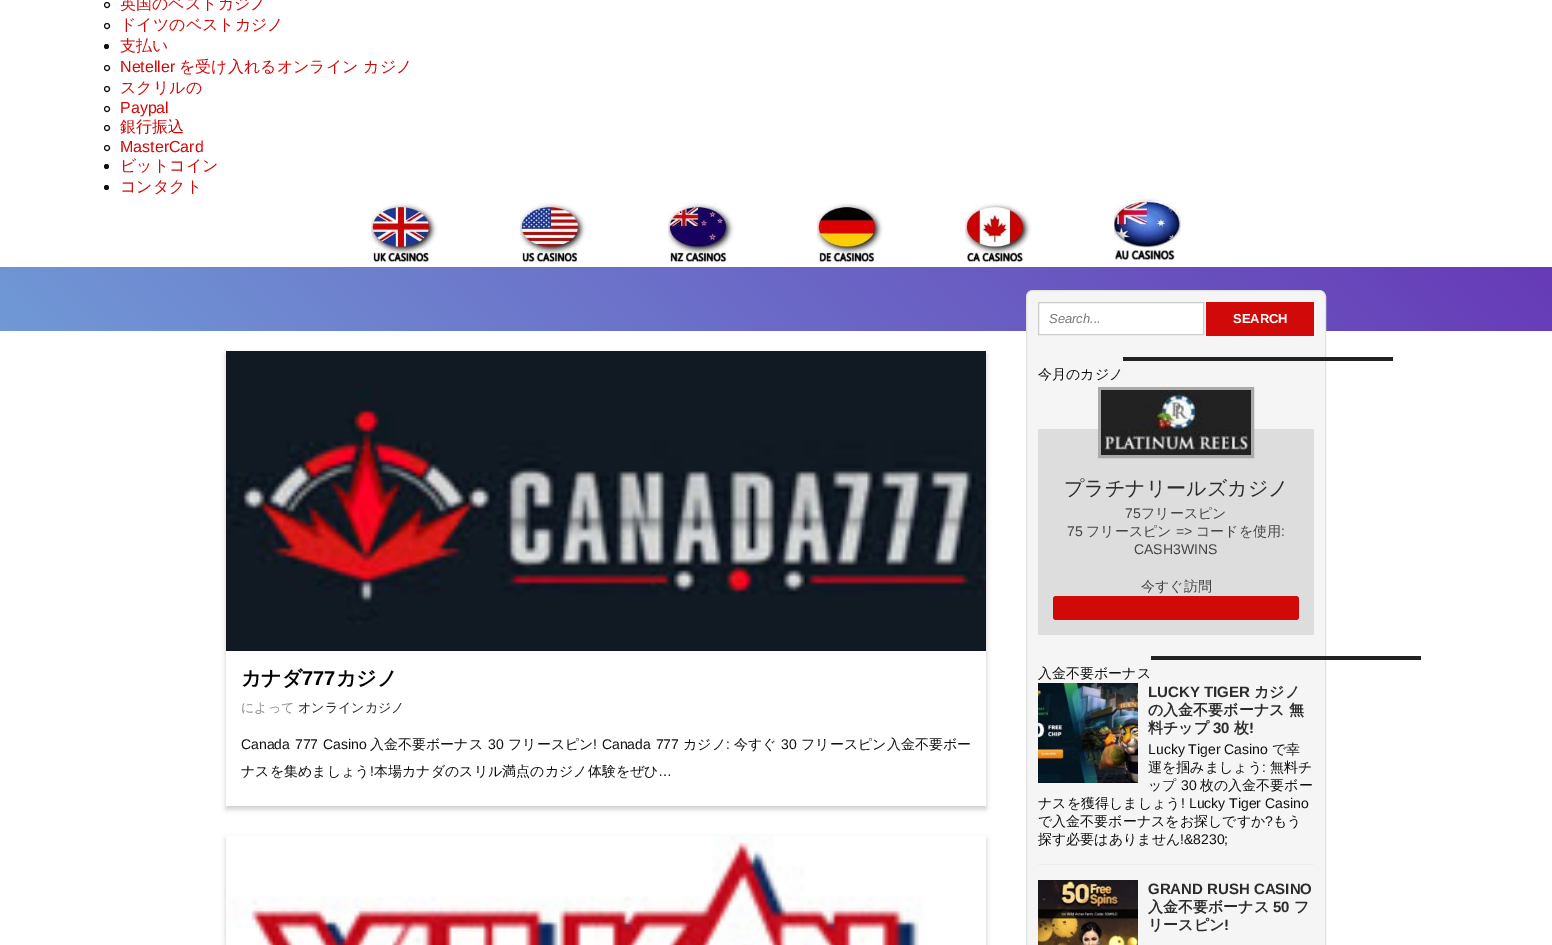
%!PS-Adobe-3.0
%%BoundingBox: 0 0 1552 945
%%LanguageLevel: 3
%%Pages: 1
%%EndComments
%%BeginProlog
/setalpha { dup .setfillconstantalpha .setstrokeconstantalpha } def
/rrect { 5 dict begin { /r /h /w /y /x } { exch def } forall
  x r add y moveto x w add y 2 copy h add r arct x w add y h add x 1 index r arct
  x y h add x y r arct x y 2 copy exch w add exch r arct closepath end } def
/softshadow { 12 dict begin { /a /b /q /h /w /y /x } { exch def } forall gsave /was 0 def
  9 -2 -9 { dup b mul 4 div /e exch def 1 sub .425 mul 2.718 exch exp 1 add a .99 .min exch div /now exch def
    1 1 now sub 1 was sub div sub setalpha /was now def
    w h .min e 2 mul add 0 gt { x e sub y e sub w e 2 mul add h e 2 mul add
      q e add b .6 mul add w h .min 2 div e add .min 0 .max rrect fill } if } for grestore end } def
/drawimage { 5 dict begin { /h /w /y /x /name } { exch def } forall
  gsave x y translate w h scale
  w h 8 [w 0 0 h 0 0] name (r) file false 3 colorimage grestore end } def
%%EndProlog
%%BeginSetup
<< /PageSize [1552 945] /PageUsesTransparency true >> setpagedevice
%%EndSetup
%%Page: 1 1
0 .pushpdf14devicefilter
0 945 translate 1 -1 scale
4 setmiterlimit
1 setgray
0 0 1552 945 rectfill
0.067 setgray
newpath 107 5 2.5 0 360 arc closepath stroke
newpath 107 26 2.5 0 360 arc closepath stroke
newpath 106.5 46.5 2.5 0 360 arc closepath fill
newpath 107 68 2.5 0 360 arc closepath stroke
newpath 107 89 2.5 0 360 arc closepath stroke
newpath 107 109 2.5 0 360 arc closepath stroke
newpath 107 128 2.5 0 360 arc closepath stroke
newpath 107 148 2.5 0 360 arc closepath stroke
newpath 106.5 166.5 2.5 0 360 arc closepath fill
newpath 106.5 187.5 2.5 0 360 arc closepath fill
(images/1.raw) 371 203 67 60 drawimage
(images/2.raw) 520 203 67 60 drawimage
(images/3.raw) 668 203 67 60 drawimage
(images/4.raw) 817 203 67 60 drawimage
(images/5.raw) 965 203 67 60 drawimage
(images/6.raw) 1114 198 67 62 drawimage
gsave newpath 0 267 moveto 1552 267 lineto 1552 331 lineto 0 331 lineto closepath clip newpath
<< /ShadingType 2 /ColorSpace /DeviceRGB /Coords [372 703 1180 -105] /Extend [true true] /Function << /FunctionType 2 /Domain [0 1] /C0 [0.439 0.6 0.839] /C1 [0.404 0.227 0.718] /N 1 >> >> shfill grestore
gsave
newpath 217 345 moveto 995 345 lineto 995 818 lineto 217 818 lineto closepath 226 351 moveto 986 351 lineto 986 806 lineto 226 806 lineto closepath eoclip newpath
0.808 0.792 0.792 setrgbcolor
226 354 760 455 0 2.5 1 softshadow
grestore
(images/7.raw) 226 351 760 300 drawimage
gsave
newpath 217 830 moveto 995 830 lineto 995 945 lineto 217 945 lineto closepath 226 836 moveto 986 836 lineto 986 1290 lineto 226 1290 lineto closepath eoclip newpath
0.808 0.792 0.792 setrgbcolor
226 839 760 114 0 2.5 1 softshadow
grestore
(images/8.raw) 226 836 698 109 drawimage
0.961 setgray
1026.5 290.5 299 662 6.5 rrect gsave fill grestore
0.882 setgray
stroke
1 setgray
newpath 1038.5 302.5 moveto 1203.5 302.5 lineto 1203.5 334.5 lineto 1038.5 334.5 lineto closepath gsave fill grestore
0.8 setgray
stroke
0.82 0.035 0.035 setrgbcolor
1206 302 108 34 rectfill
0.133 setgray
1123 357 270 4 rectfill
0.867 setgray
1038 429 276 206 rectfill
0.667 setgray
3 setlinewidth
1099.5 388.5 153 68 rectstroke
(images/9.raw) 1101 390 150 65 drawimage
0.82 0.035 0.035 setrgbcolor
1053 596 246 24 3 rrect fill
0.133 setgray
1151 656 270 4 rectfill
0.933 setgray
1038 864 276 1 rectfill
(images/10.raw) 1038 683 100 100 drawimage
(images/11.raw) 1038 880 100 65 drawimage
/WenQuanYiZenHei-Medium [16 0 0 -16 0 0] selectfont
0.82 0.035 0.035 setrgbcolor
120 9 moveto (英国のベストカジノ) show
120 30 moveto (ドイツのベストカジノ) show
120 51 moveto (支払い) show
/LiberationSans-Regular [16 0 0 -16 0 0] selectfont
120 72 moveto (Neteller) show
/WenQuanYiZenHei-Medium [16 0 0 -16 0 0] selectfont
179 72 moveto (を受け入れるオンライン カジノ) show
120 93 moveto (スクリルの) show
/LiberationSans-Regular [16 0 0 -16 0 0] selectfont
120 113 moveto (Paypal) show
/WenQuanYiZenHei-Medium [16 0 0 -16 0 0] selectfont
120 132 moveto (銀行振込) show
/LiberationSans-Regular [16 0 0 -16 0 0] selectfont
120 152 moveto (MasterCard) show
/WenQuanYiZenHei-Medium [16 0 0 -16 0 0] selectfont
120 171 moveto (ビットコイン) show
120 192 moveto (コンタクト) show
/WenQuanYiZenHei-Bold [20 0 0 -20 0 0] selectfont
0 setgray
241 685 moveto (カナダ) show
/LiberationSans-Bold [20 0 0 -20 0 0] selectfont
302 685 moveto (777) show
/WenQuanYiZenHei-Bold [20 0 0 -20 0 0] selectfont
336 685 moveto (カジノ) show
/WenQuanYiZenHei-Medium [13 0 0 -13 0 0] selectfont
0.541 setgray
241 712 moveto (によって) show
0.145 setgray
298 712 moveto (オンラインカジノ) show
/LiberationSans-Regular [14 0 0 -14 0 0] selectfont
0.067 setgray
241 749 moveto 1 0 32 (Canada 777 Casino) widthshow
/WenQuanYiZenHei-Medium [14 0 0 -14 0 0] selectfont
370 749 moveto (入金不要ボーナス) show
/LiberationSans-Regular [14 0 0 -14 0 0] selectfont
488 749 moveto (30) show
/WenQuanYiZenHei-Medium [14 0 0 -14 0 0] selectfont
508 749 moveto (フリースピン) show
/LiberationSans-Regular [14 0 0 -14 0 0] selectfont
593 749 moveto 1 0 32 (! Canada 777) widthshow
/WenQuanYiZenHei-Medium [14 0 0 -14 0 0] selectfont
683 749 moveto (カジノ) show
/LiberationSans-Regular [14 0 0 -14 0 0] selectfont
726 749 moveto (:) show
/WenQuanYiZenHei-Medium [14 0 0 -14 0 0] selectfont
734 749 moveto (今すぐ) show
/LiberationSans-Regular [14 0 0 -14 0 0] selectfont
781 749 moveto (30) show
/WenQuanYiZenHei-Medium [14 0 0 -14 0 0] selectfont
801 749 moveto (フリースピン入金不要ボー) show
241 776 moveto (ナスを集めましょう) show
/LiberationSans-Regular [14 0 0 -14 0 0] selectfont
370 776 moveto (!) show
/WenQuanYiZenHei-Medium [14 0 0 -14 0 0] selectfont
374 776 moveto (本場カナダのスリル満点のカジノ体験をぜひ) show
/LiberationSans-Regular [14 0 0 -14 0 0] selectfont
658 776 moveto (…) show
/LiberationSans-Italic [13 0 0 -13 0 0] selectfont
0.459 setgray
1049 323 moveto (Search...) show
/LiberationSans-Bold [13 0 0 -13 0 0] selectfont
1 setgray
1233 323 moveto (SEARCH) show
/WenQuanYiZenHei-Medium [14 0 0 -14 0 0] selectfont
0.067 setgray
1038 379 moveto (今月のカジノ) show
/WenQuanYiZenHei-Medium [20 0 0 -20 0 0] selectfont
0.173 setgray
1064 495 moveto (プラチナリールズカジノ) show
/LiberationSans-Regular [14 0 0 -14 0 0] selectfont
0.267 setgray
1125 518 moveto (75) show
/WenQuanYiZenHei-Medium [14 0 0 -14 0 0] selectfont
1141 518 moveto (フリースピン) show
/LiberationSans-Regular [14 0 0 -14 0 0] selectfont
1067 536 moveto (75) show
/WenQuanYiZenHei-Medium [14 0 0 -14 0 0] selectfont
1086 536 moveto (フリースピン) show
/LiberationSans-Regular [14 0 0 -14 0 0] selectfont
1176 536 moveto (=>) show
/WenQuanYiZenHei-Medium [14 0 0 -14 0 0] selectfont
1196 536 moveto (コードを使用) show
/LiberationSans-Regular [14 0 0 -14 0 0] selectfont
1281 536 moveto (:) show
1134 554 moveto (CASH3WINS) show
/WenQuanYiZenHei-Medium [14 0 0 -14 0 0] selectfont
1141 591 moveto (今すぐ訪問) show
0.067 setgray
1038 678 moveto (入金不要ボーナス) show
/LiberationSans-Bold [15 0 0 -15 0 0] selectfont
0.173 setgray
1148 697 moveto (LUCKY TIGER) show
/WenQuanYiZenHei-Bold [15 0 0 -15 0 0] selectfont
1254 697 moveto (カジノ) show
1148 715 moveto (の入金不要ボーナス 無) show
1148 733 moveto (料チップ) show
/LiberationSans-Bold [15 0 0 -15 0 0] selectfont
1213 733 moveto (30) show
/WenQuanYiZenHei-Bold [15 0 0 -15 0 0] selectfont
1234 733 moveto (枚) show
/LiberationSans-Bold [15 0 0 -15 0 0] selectfont
1249 733 moveto (!) show
/LiberationSans-Regular [14 0 0 -14 0 0] selectfont
0.067 setgray
1148 754 moveto (Lucky Tiger Casino) show
/WenQuanYiZenHei-Medium [14 0 0 -14 0 0] selectfont
1272 754 moveto (で幸) show
1148 772 moveto (運を掴みましょう) show
/LiberationSans-Regular [14 0 0 -14 0 0] selectfont
1262 772 moveto (:) show
/WenQuanYiZenHei-Medium [14 0 0 -14 0 0] selectfont
1270 772 moveto (無料チ) show
1148 790 moveto (ップ) show
/LiberationSans-Regular [14 0 0 -14 0 0] selectfont
1181 790 moveto (30) show
/WenQuanYiZenHei-Medium [14 0 0 -14 0 0] selectfont
1200 790 moveto (枚の入金不要ボー) show
1038 808 moveto (ナスを獲得しましょう) show
/LiberationSans-Regular [14 0 0 -14 0 0] selectfont
1181 808 moveto (! Lucky Tiger Casino) show
/WenQuanYiZenHei-Medium [14 0 0 -14 0 0] selectfont
1038 826 moveto (で入金不要ボーナスをお探しですか) show
/LiberationSans-Regular [14 0 0 -14 0 0] selectfont
1265 826 moveto (?) show
/WenQuanYiZenHei-Medium [14 0 0 -14 0 0] selectfont
1273 826 moveto (もう) show
1038 844 moveto (探す必要はありません) show
/LiberationSans-Regular [14 0 0 -14 0 0] selectfont
1180 844 moveto (!&8230;) show
/LiberationSans-Bold [15 0 0 -15 0 0] selectfont
0.173 setgray
1148 894 moveto (GRAND RUSH CASINO) show
/WenQuanYiZenHei-Bold [15 0 0 -15 0 0] selectfont
1148 912 moveto (入金不要ボーナス) show
/LiberationSans-Bold [15 0 0 -15 0 0] selectfont
1273 912 moveto (50) show
/WenQuanYiZenHei-Bold [15 0 0 -15 0 0] selectfont
1294 912 moveto (フ) show
1148 930 moveto (リースピン) show
/LiberationSans-Bold [15 0 0 -15 0 0] selectfont
1224 930 moveto (!) show
.poppdf14devicefilter showpage
%%EOF
